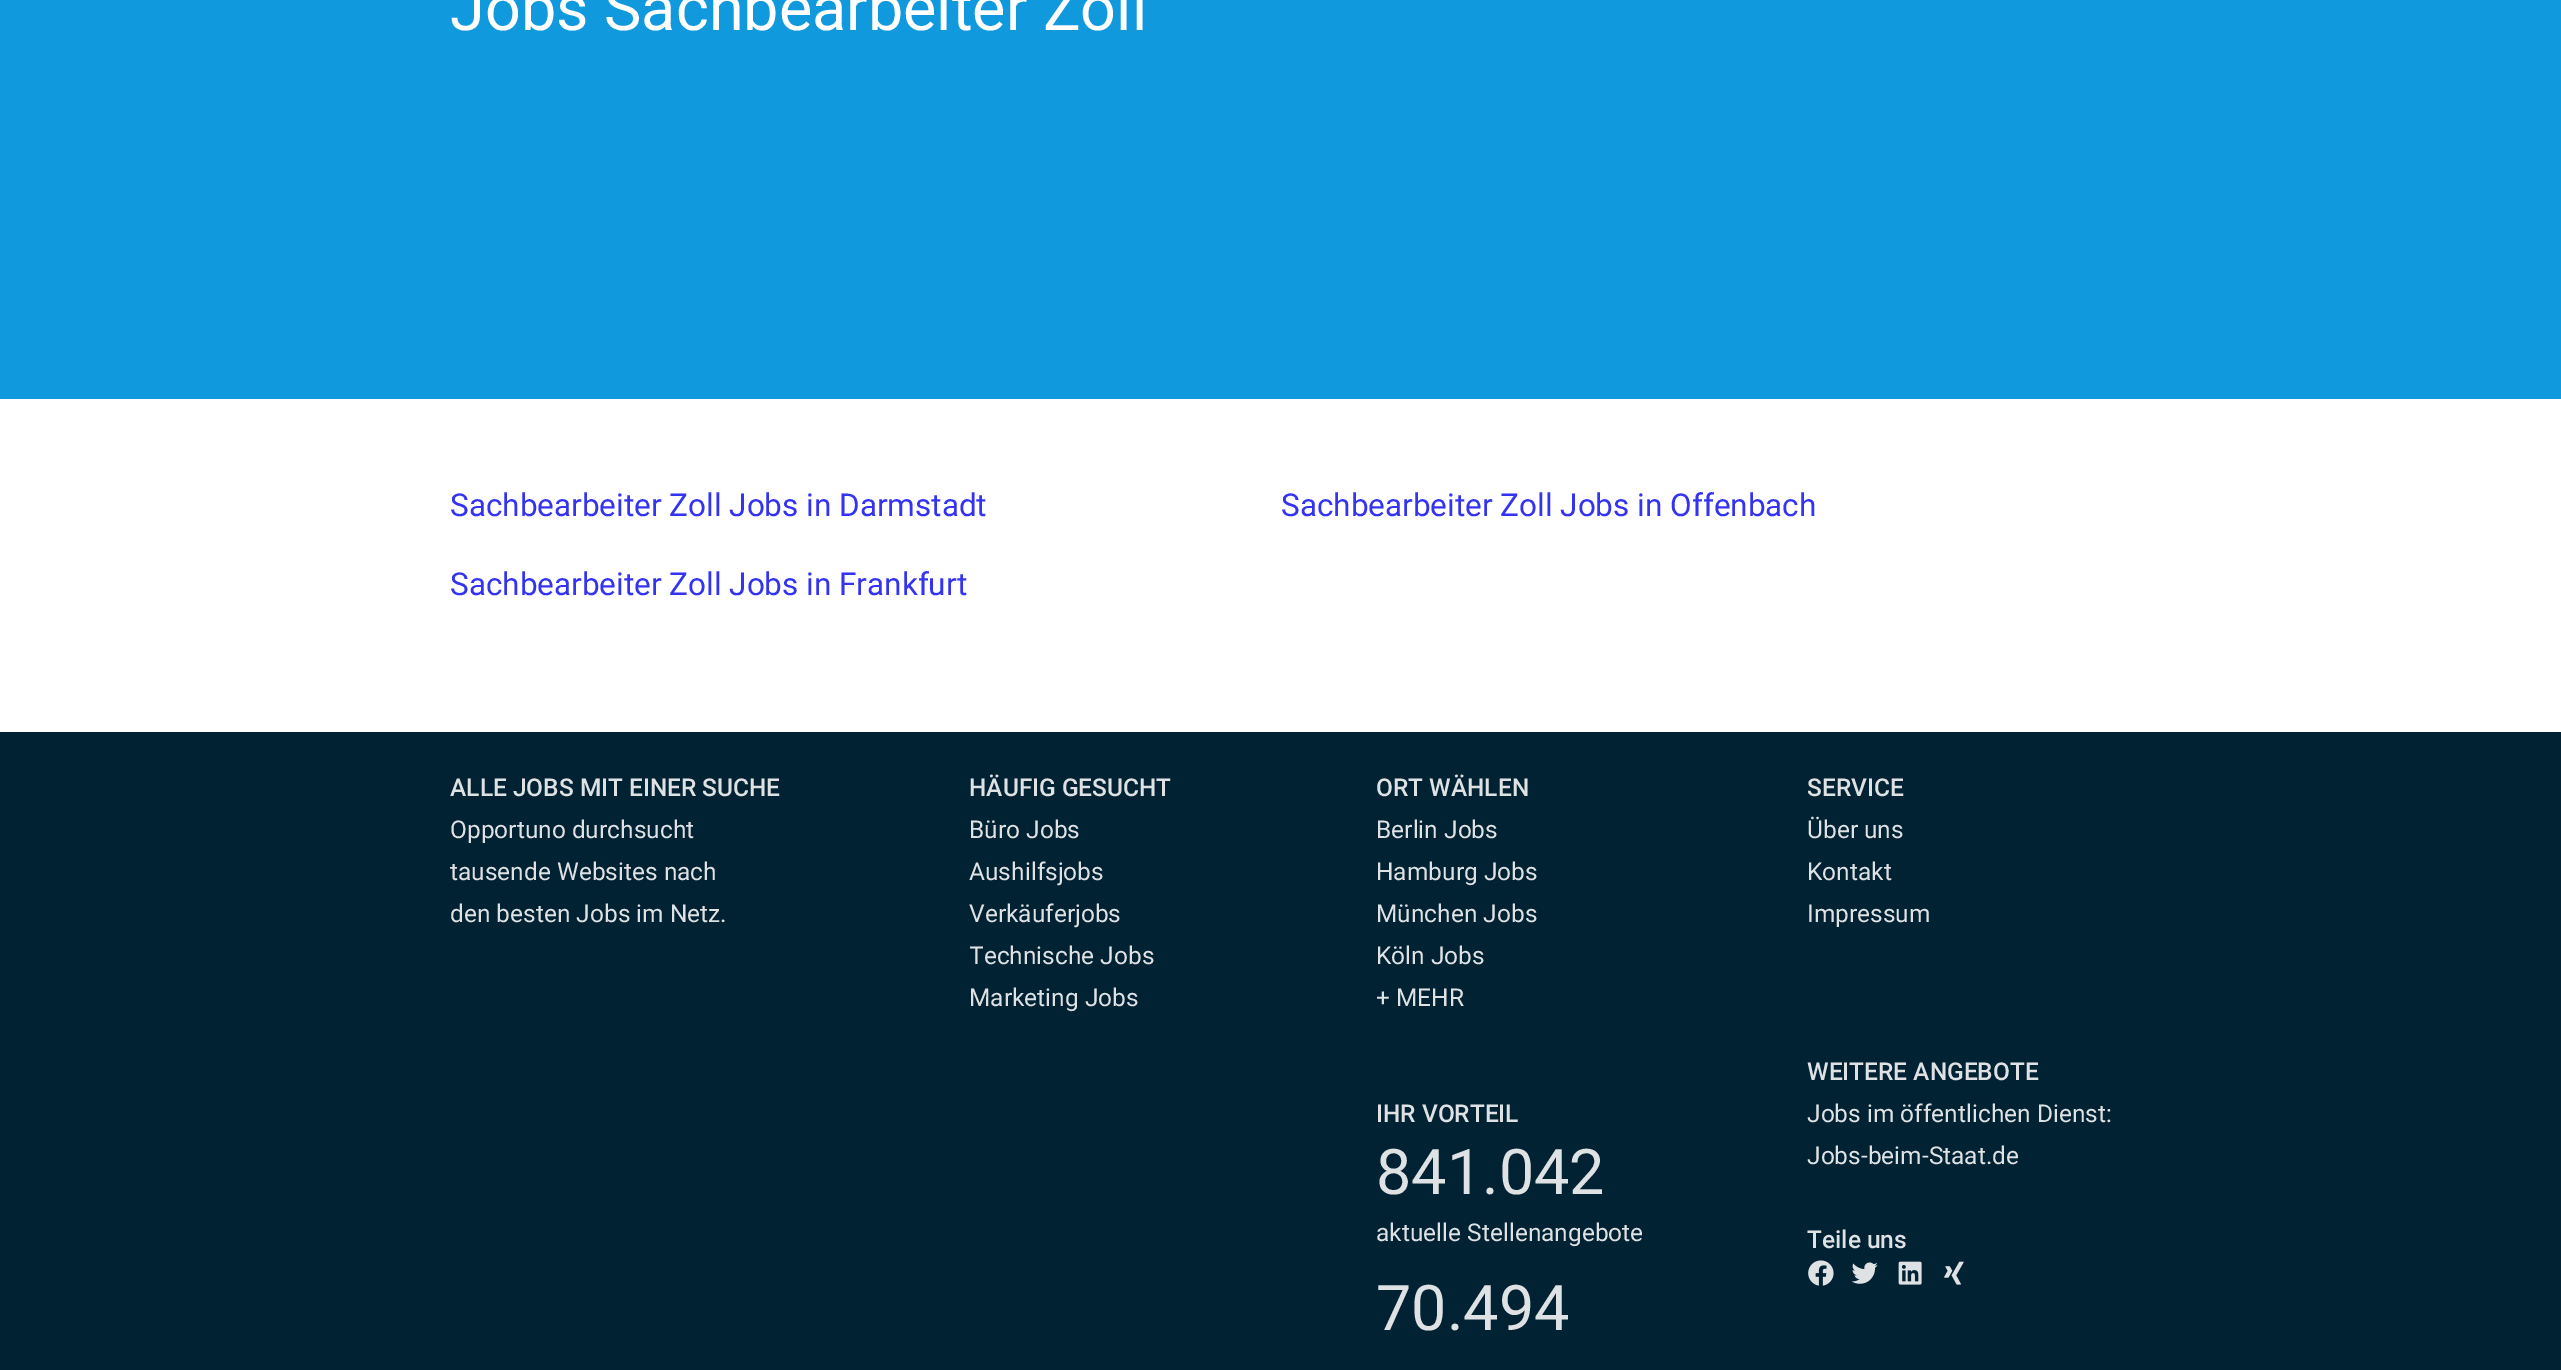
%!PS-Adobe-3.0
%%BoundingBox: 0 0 2561 1370
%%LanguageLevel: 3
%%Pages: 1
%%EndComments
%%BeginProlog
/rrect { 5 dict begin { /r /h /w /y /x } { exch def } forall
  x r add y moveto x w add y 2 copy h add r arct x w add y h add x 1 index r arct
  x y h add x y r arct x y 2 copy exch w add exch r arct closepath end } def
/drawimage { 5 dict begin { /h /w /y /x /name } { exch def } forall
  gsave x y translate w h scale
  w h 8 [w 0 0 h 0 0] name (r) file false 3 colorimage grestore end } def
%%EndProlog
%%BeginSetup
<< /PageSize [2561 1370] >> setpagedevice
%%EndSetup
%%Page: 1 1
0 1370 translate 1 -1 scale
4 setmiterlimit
1 setgray
0 0 2561 1370 rectfill
0.067 0.6 0.867 setrgbcolor
0 0 2561 399 rectfill
0.004 0.133 0.2 setrgbcolor
0 732 2561 638 rectfill
(images/1.raw) 1808 1260 26 26 drawimage
(images/2.raw) 1852 1262 26 22 drawimage
(images/3.raw) 1898 1261 24 24 drawimage
(images/4.raw) 1944 1261 20 24 drawimage
/Roboto-Regular [63 0 0 -63 0 0] selectfont
1 setgray
450 30 moveto (Jobs Sachbearbeiter Zoll) show
/Roboto-Regular [31.5 0 0 -31.5 0 0] selectfont
0.2 0.2 0.945 setrgbcolor
450 516 moveto (Sachbearbeiter Zoll Jobs in Darmstadt) show
1281 516 moveto (Sachbearbeiter Zoll Jobs in Offenbach) show
450 595 moveto (Sachbearbeiter Zoll Jobs in Frankfurt) show
/Roboto-Medium [24.5 0 0 -24.5 0 0] selectfont
0.871 0.886 0.894 setrgbcolor
450 796 moveto (ALLE JOBS MIT EINER SUCHE) show
/Roboto-Regular [24.5 0 0 -24.5 0 0] selectfont
450 838 moveto (Opportuno durchsucht) show
450 880 moveto (tausende Websites nach) show
450 922 moveto (den besten Jobs im Netz.) show
/Roboto-Medium [24.5 0 0 -24.5 0 0] selectfont
969 796 moveto (HÄUFIG GESUCHT) show
/Roboto-Regular [24.5 0 0 -24.5 0 0] selectfont
969 838 moveto (Büro Jobs) show
969 880 moveto (Aushilfsjobs) show
969 922 moveto (Verkäuferjobs) show
gsave
970 767 262 252 7 rrect clip newpath
969 964 moveto (Technische Jobs) show
grestore
969 1006 moveto (Marketing Jobs) show
/Roboto-Medium [24.5 0 0 -24.5 0 0] selectfont
1376 796 moveto (ORT WÄHLEN) show
/Roboto-Regular [24.5 0 0 -24.5 0 0] selectfont
1376 838 moveto (Berlin Jobs) show
1376 880 moveto (Hamburg Jobs) show
1376 922 moveto (München Jobs) show
1376 964 moveto (Köln Jobs) show
1376 1006 moveto (+ MEHR) show
/Roboto-Medium [24.5 0 0 -24.5 0 0] selectfont
1376 1122 moveto (IHR VORTEIL) show
/Roboto-Regular [63 0 0 -63 0 0] selectfont
1376 1194 moveto (841.042) show
/Roboto-Regular [24.5 0 0 -24.5 0 0] selectfont
1376 1241 moveto (aktuelle Stellenangebote) show
/Roboto-Regular [63 0 0 -63 0 0] selectfont
1376 1330 moveto (70.494) show
/Roboto-Medium [24.5 0 0 -24.5 0 0] selectfont
1807 796 moveto (SERVICE) show
/Roboto-Regular [24.5 0 0 -24.5 0 0] selectfont
1807 838 moveto (Über uns) show
1807 880 moveto (Kontakt) show
1807 922 moveto (Impressum) show
/Roboto-Medium [24.5 0 0 -24.5 0 0] selectfont
1807 1080 moveto (WEITERE ANGEBOTE) show
/Roboto-Regular [24.5 0 0 -24.5 0 0] selectfont
1807 1122 moveto (Jobs im öffentlichen Dienst:) show
1807 1164 moveto (Jobs-beim-Staat.de) show
/Roboto-Medium [24.5 0 0 -24.5 0 0] selectfont
1807 1248 moveto (Teile uns) show
showpage
%%EOF
